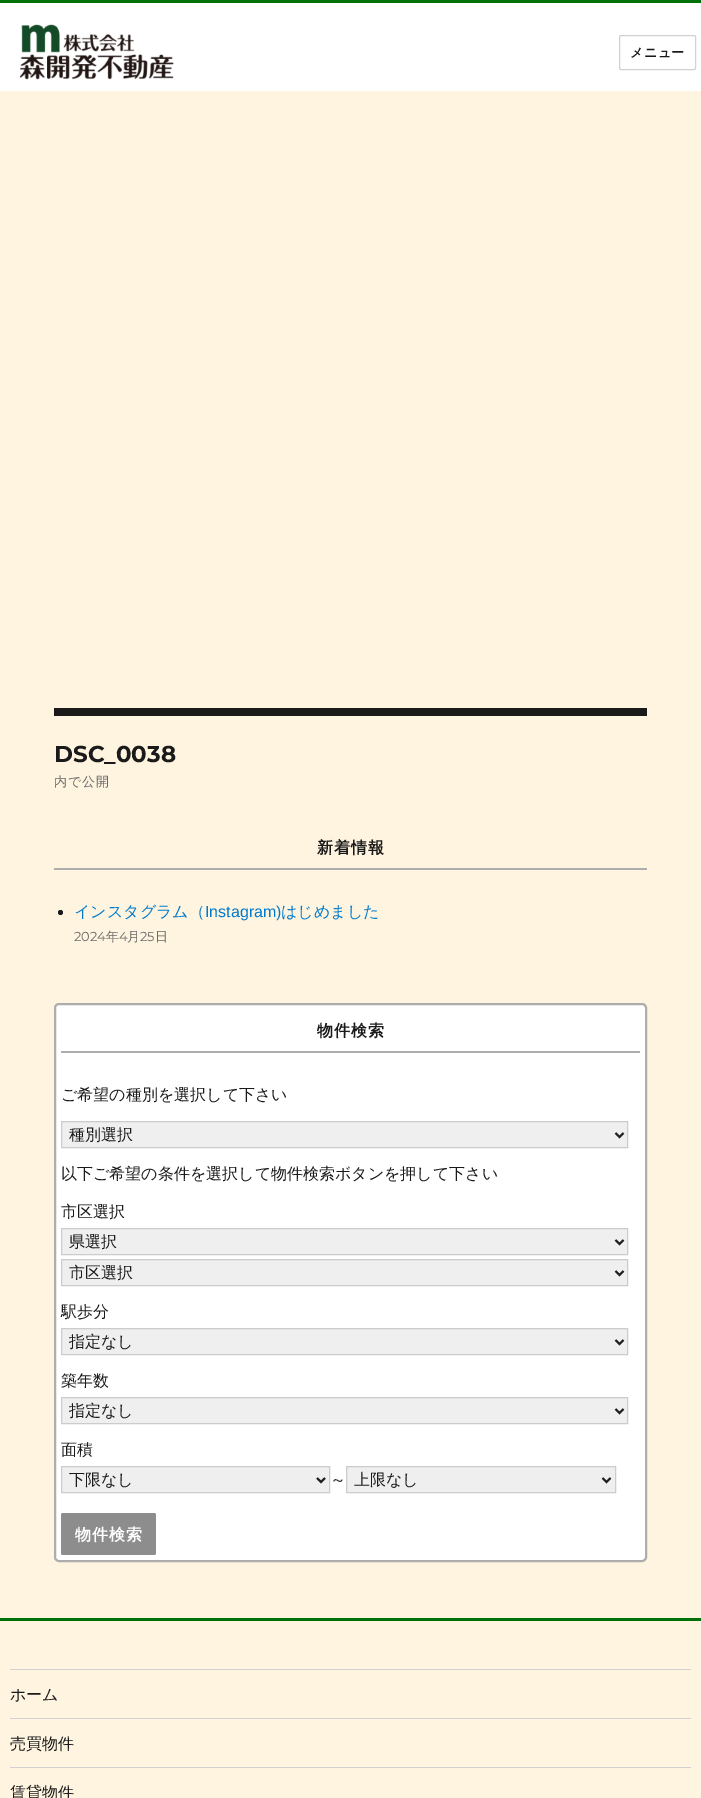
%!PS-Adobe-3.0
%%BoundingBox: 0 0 701 1798
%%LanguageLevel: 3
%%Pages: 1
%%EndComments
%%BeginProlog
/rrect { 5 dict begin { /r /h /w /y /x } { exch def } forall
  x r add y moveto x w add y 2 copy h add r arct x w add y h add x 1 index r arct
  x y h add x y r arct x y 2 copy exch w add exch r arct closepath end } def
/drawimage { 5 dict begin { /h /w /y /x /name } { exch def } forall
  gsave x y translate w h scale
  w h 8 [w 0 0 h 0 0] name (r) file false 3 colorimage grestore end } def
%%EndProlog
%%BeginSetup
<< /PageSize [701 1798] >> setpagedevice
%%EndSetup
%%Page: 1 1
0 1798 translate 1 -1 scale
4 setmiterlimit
1 0.957 0.878 setrgbcolor
0 0 701 1798 rectfill
1 setgray
0 3 701 88 rectfill
0 0.443 0.035 setrgbcolor
0 0 701 3 rectfill
(images/1.raw) 19 24 155 56 drawimage
0.82 setgray
619.5 35.5 76 34 1.5 rrect stroke
0.102 setgray
54 708 593 8 rectfill
0.678 setgray
54 868 593 2 rectfill
0.102 setgray
newpath 60.5 912.5 2.5 0 360 arc closepath fill
1 setgray
55 1004 591 557 4 rrect gsave fill grestore
0.678 setgray
2 setlinewidth
stroke
61 1051 579 2 rectfill
0.937 setgray
newpath 61.5 1121.5 moveto 627.5 1121.5 lineto 627.5 1147.5 lineto 61.5 1147.5 lineto closepath gsave fill grestore
0.8 setgray
1 setlinewidth
stroke
0.122 setgray
2 setlinewidth
newpath 615.5 1133 moveto 619.5 1137 lineto 623.5 1133 lineto stroke
0.937 setgray
newpath 61.5 1228.5 moveto 627.5 1228.5 lineto 627.5 1254.5 lineto 61.5 1254.5 lineto closepath gsave fill grestore
0.8 setgray
1 setlinewidth
stroke
0.122 setgray
2 setlinewidth
newpath 615.5 1240 moveto 619.5 1244 lineto 623.5 1240 lineto stroke
0.937 setgray
newpath 61.5 1259.5 moveto 627.5 1259.5 lineto 627.5 1285.5 lineto 61.5 1285.5 lineto closepath gsave fill grestore
0.8 setgray
1 setlinewidth
stroke
0.122 setgray
2 setlinewidth
newpath 615.5 1271 moveto 619.5 1275 lineto 623.5 1271 lineto stroke
0.937 setgray
newpath 61.5 1328.5 moveto 627.5 1328.5 lineto 627.5 1354.5 lineto 61.5 1354.5 lineto closepath gsave fill grestore
0.8 setgray
1 setlinewidth
stroke
0.122 setgray
2 setlinewidth
newpath 615.5 1340 moveto 619.5 1344 lineto 623.5 1340 lineto stroke
0.937 setgray
newpath 61.5 1397.5 moveto 627.5 1397.5 lineto 627.5 1423.5 lineto 61.5 1423.5 lineto closepath gsave fill grestore
0.8 setgray
1 setlinewidth
stroke
0.122 setgray
2 setlinewidth
newpath 615.5 1409 moveto 619.5 1413 lineto 623.5 1409 lineto stroke
0.937 setgray
newpath 61.5 1466.5 moveto 329.5 1466.5 lineto 329.5 1492.5 lineto 61.5 1492.5 lineto closepath gsave fill grestore
0.8 setgray
1 setlinewidth
stroke
0.122 setgray
2 setlinewidth
newpath 317 1478 moveto 321 1482 lineto 325 1478 lineto stroke
0.937 setgray
newpath 346.5 1466.5 moveto 615.5 1466.5 lineto 615.5 1492.5 lineto 346.5 1492.5 lineto closepath gsave fill grestore
0.8 setgray
1 setlinewidth
stroke
0.122 setgray
2 setlinewidth
newpath 602.5 1478 moveto 606.5 1482 lineto 610.5 1478 lineto stroke
0.553 setgray
61 1513 95 42 2 rrect fill
0 0.443 0.035 setrgbcolor
0 1618 701 3 rectfill
0.82 setgray
10 1669 681 1 rectfill
10 1718 681 1 rectfill
10 1767 681 1 rectfill
/WenQuanYiZenHei-Bold [13 0 0 -13 0 0] selectfont
0.102 setgray
630 57 moveto 0.5 0 (メニュー) ashow
/Montserrat-Bold [23 0 0 -23 0 0] selectfont
54 762 moveto (DSC_0038) show
/WenQuanYiZenHei-Medium [13 0 0 -13 0 0] selectfont
0.408 setgray
54 786 moveto 1 0 (内で公開) ashow
/WenQuanYiZenHei-Bold [16 0 0 -16 0 0] selectfont
0.102 setgray
317 853 moveto 1 0 (新着情報) ashow
/WenQuanYiZenHei-Medium [16 0 0 -16 0 0] selectfont
0 0.478 0.8 setrgbcolor
74 917 moveto (インスタグラム（) show
/LiberationSans-Regular [16 0 0 -16 0 0] selectfont
205 917 moveto (Instagram\)) show
/WenQuanYiZenHei-Medium [16 0 0 -16 0 0] selectfont
281 917 moveto (はじめました) show
/Montserrat-Regular [13 0 0 -13 0 0] selectfont
0.408 setgray
74 941 moveto (2024) show
/WenQuanYiZenHei-Medium [13 0 0 -13 0 0] selectfont
106 941 moveto (年) show
/Montserrat-Regular [13 0 0 -13 0 0] selectfont
119 941 moveto (4) show
/WenQuanYiZenHei-Medium [13 0 0 -13 0 0] selectfont
127 941 moveto (月) show
/Montserrat-Regular [13 0 0 -13 0 0] selectfont
140 941 moveto (25) show
/WenQuanYiZenHei-Medium [13 0 0 -13 0 0] selectfont
155 941 moveto (日) show
/WenQuanYiZenHei-Bold [16 0 0 -16 0 0] selectfont
0.102 setgray
317 1036 moveto 1 0 (物件検索) ashow
/WenQuanYiZenHei-Medium [16 0 0 -16 0 0] selectfont
61 1100 moveto (ご希望の種別を選択して下さい) show
69 1140 moveto (種別選択) show
61 1179 moveto (以下ご希望の条件を選択して物件検索ボタンを押して下さい) show
61 1217 moveto (市区選択) show
69 1247 moveto (県選択) show
69 1278 moveto (市区選択) show
61 1317 moveto (駅歩分) show
69 1347 moveto (指定なし) show
61 1386 moveto (築年数) show
69 1416 moveto (指定なし) show
61 1455 moveto (面積) show
69 1485 moveto (下限なし) show
330 1485 moveto (～) show
354 1485 moveto (上限なし) show
/WenQuanYiZenHei-Bold [16 0 0 -16 0 0] selectfont
1 setgray
75 1540 moveto 1 0 (物件検索) ashow
/WenQuanYiZenHei-Medium [16 0 0 -16 0 0] selectfont
0.102 setgray
10 1700 moveto (ホーム) show
10 1749 moveto (売買物件) show
10 1798 moveto (賃貸物件) show
showpage
%%EOF
